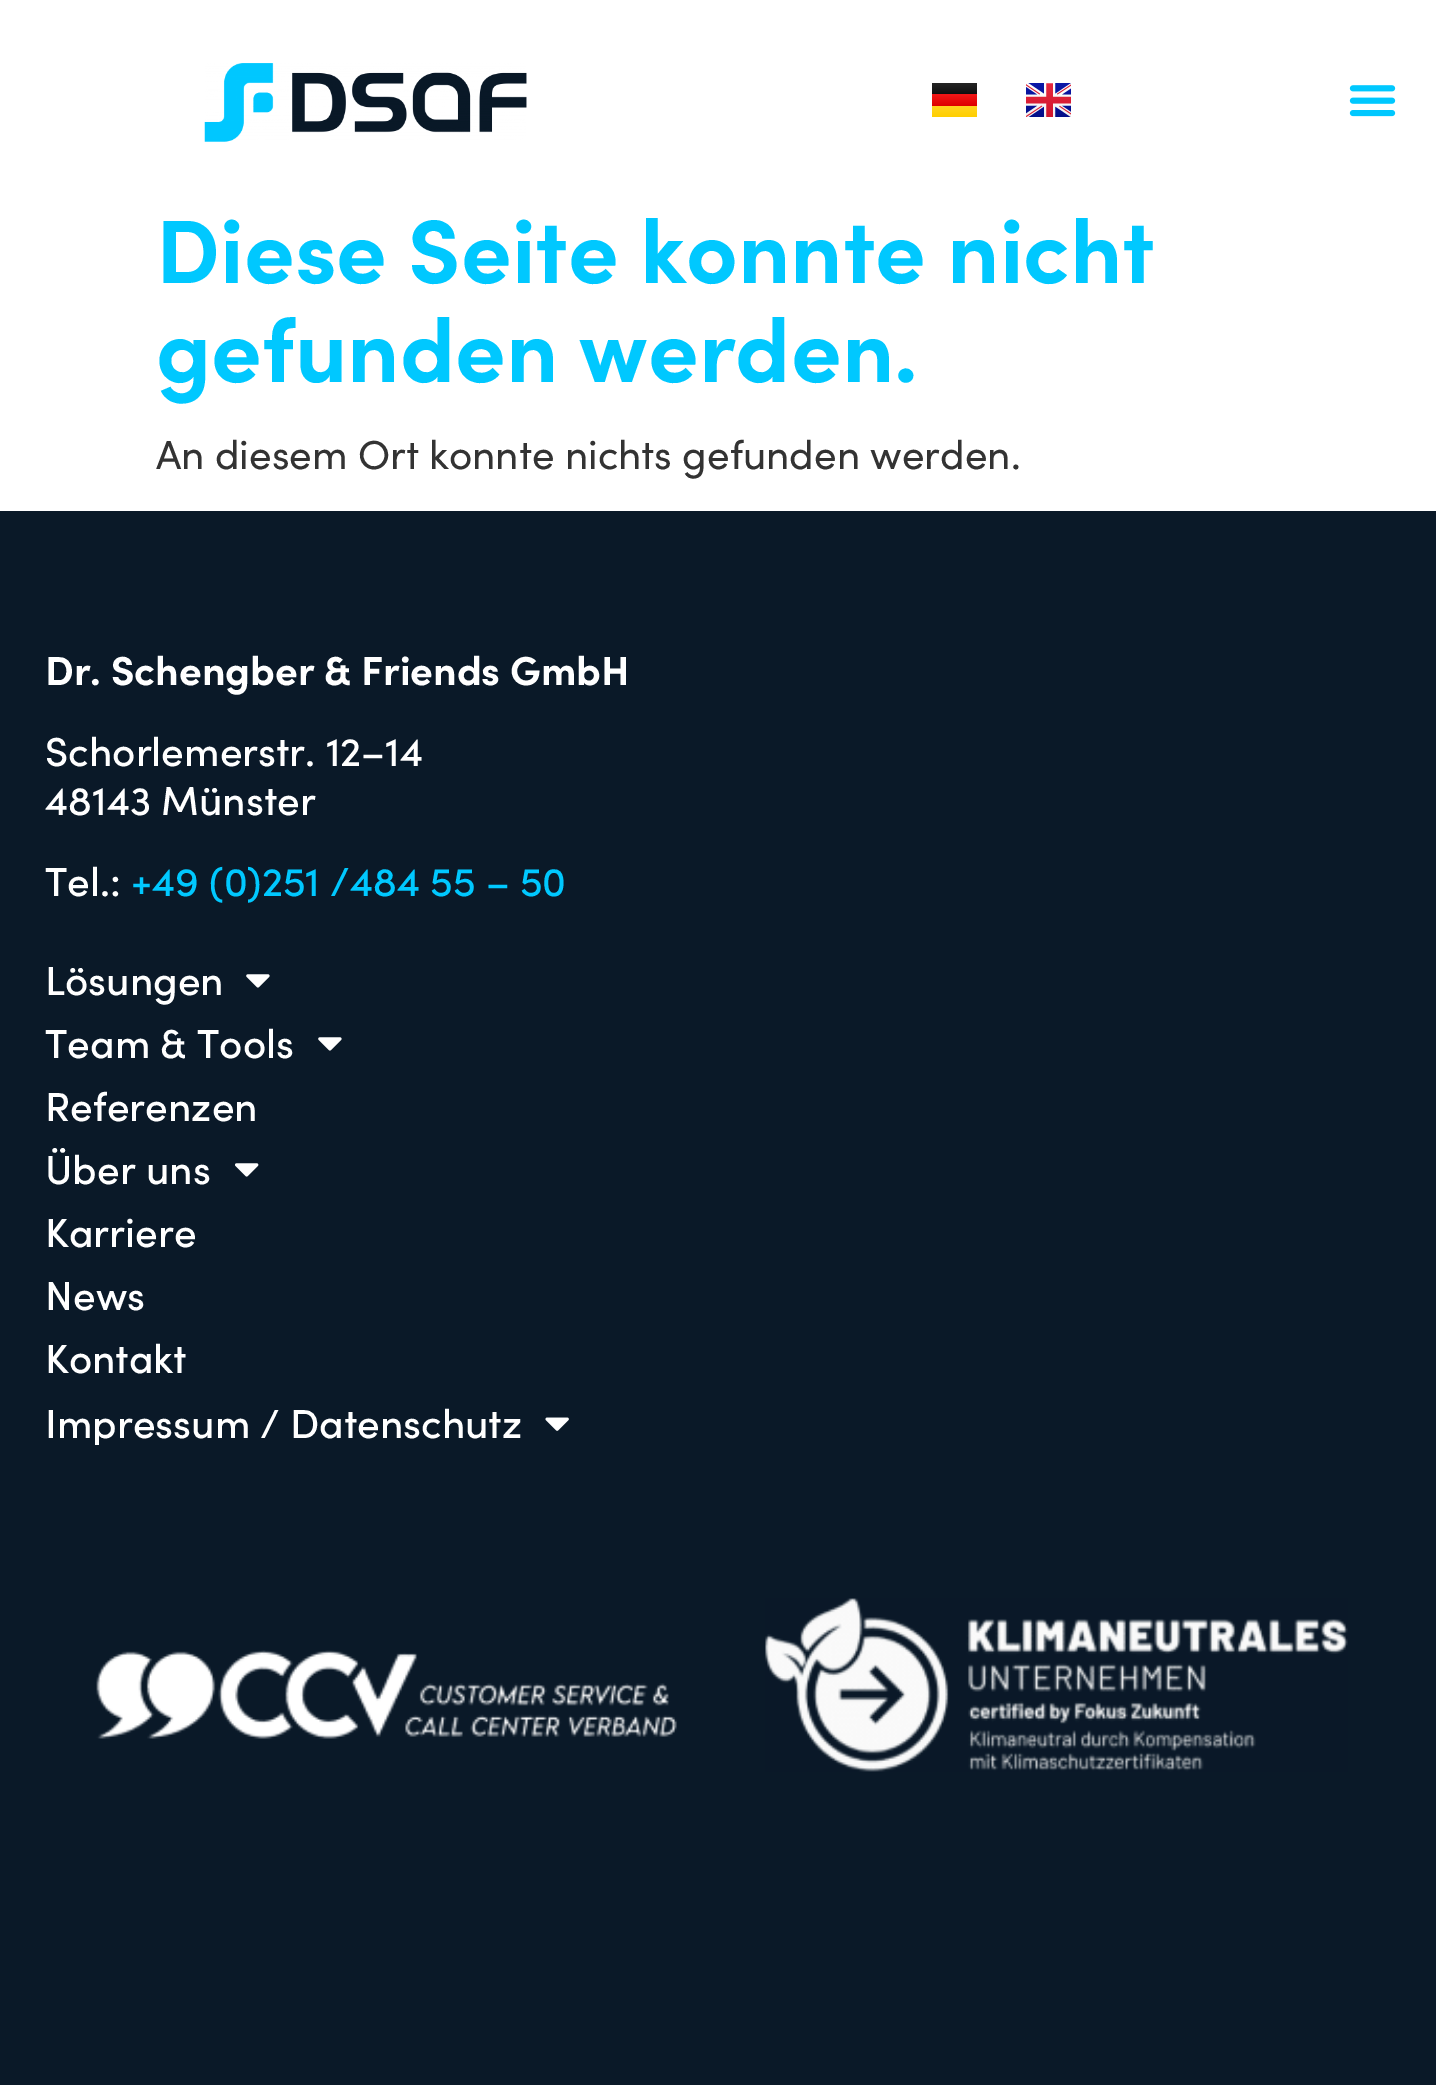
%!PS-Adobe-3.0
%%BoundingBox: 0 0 1436 2085
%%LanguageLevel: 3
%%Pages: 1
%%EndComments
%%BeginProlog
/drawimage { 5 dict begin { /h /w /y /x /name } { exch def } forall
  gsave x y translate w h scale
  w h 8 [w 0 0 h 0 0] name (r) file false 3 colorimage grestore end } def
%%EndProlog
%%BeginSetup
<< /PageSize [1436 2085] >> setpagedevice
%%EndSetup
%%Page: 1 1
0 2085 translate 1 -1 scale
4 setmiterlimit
1 setgray
0 0 1436 2085 rectfill
(images/1.raw) 204 63 323 79 drawimage
gsave newpath 932 83 moveto 977 83 lineto 977 94 lineto 932 94 lineto closepath clip newpath
<< /ShadingType 2 /ColorSpace /DeviceRGB /Coords [955 83 955 95] /Extend [true true] /Function << /FunctionType 2 /Domain [0 1] /C0 [0.149 0.149 0.149] /C1 [0.051 0.051 0.051] /N 1 >> >> shfill grestore
gsave newpath 932 94 moveto 977 94 lineto 977 106 lineto 932 106 lineto closepath clip newpath
<< /ShadingType 2 /ColorSpace /DeviceRGB /Coords [955 95 955 106] /Extend [true true] /Function << /FunctionType 2 /Domain [0 1] /C0 [0.941 0.082 0.082] /C1 [0.871 0 0] /N 1 >> >> shfill grestore
gsave newpath 932 106 moveto 977 106 lineto 977 117 lineto 932 117 lineto closepath clip newpath
<< /ShadingType 2 /ColorSpace /DeviceRGB /Coords [955 106 955 117] /Extend [true true] /Function << /FunctionType 2 /Domain [0 1] /C0 [1 0.835 0.129] /C1 [1 0.812 0] /N 1 >> >> shfill grestore
(images/2.raw) 1026 83 45 34 drawimage
(images/3.raw) 1349 85 47 32 drawimage
0.039 0.098 0.157 setrgbcolor
0 511 1436 1574 rectfill
(images/4.raw) 246 974 24 14 drawimage
(images/4.raw) 318 1037 24 14 drawimage
(images/5.raw) 235 1163 24 14 drawimage
(images/6.raw) 545 1417 24 14 drawimage
(images/7.raw) 96 1650 581 89 drawimage
(images/8.raw) 765 1598 583 174 drawimage
/Sofia-Bold [90 0 0 -90 0 0] selectfont
0 0.784 1 setrgbcolor
156 283 moveto (Diese Seite konnte nicht) show
156 382 moveto (gefunden werden.) show
/Sofia-Regular [40.5 0 0 -40.5 0 0] selectfont
0.2 setgray
156 469 moveto (An diesem Ort konnte nichts gefunden werden.) show
/Sofia-Bold [40.5 0 0 -40.5 0 0] selectfont
1 setgray
45 685 moveto (Dr. Schengber & Friends GmbH) show
/Sofia-Medium [40.5 0 0 -40.5 0 0] selectfont
45 766 moveto (Schorlemerstr. 12–14) show
45 815 moveto (48143 Münster) show
45 896 moveto (Tel.:) show
0 0.784 1 setrgbcolor
131 896 moveto (+49 \(0\)251 /484 55 – 50) show
1 setgray
45 995 moveto (Lösungen) show
45 1058 moveto (Team & Tools) show
45 1121 moveto (Referenzen) show
45 1184 moveto (Über uns) show
45 1247 moveto (Karriere) show
45 1310 moveto (News) show
45 1373 moveto (Kontakt) show
gsave
45 1400 1348 45 rectclip
45 1438 moveto (Impressum / Datenschutz) show
grestore
showpage
%%EOF
